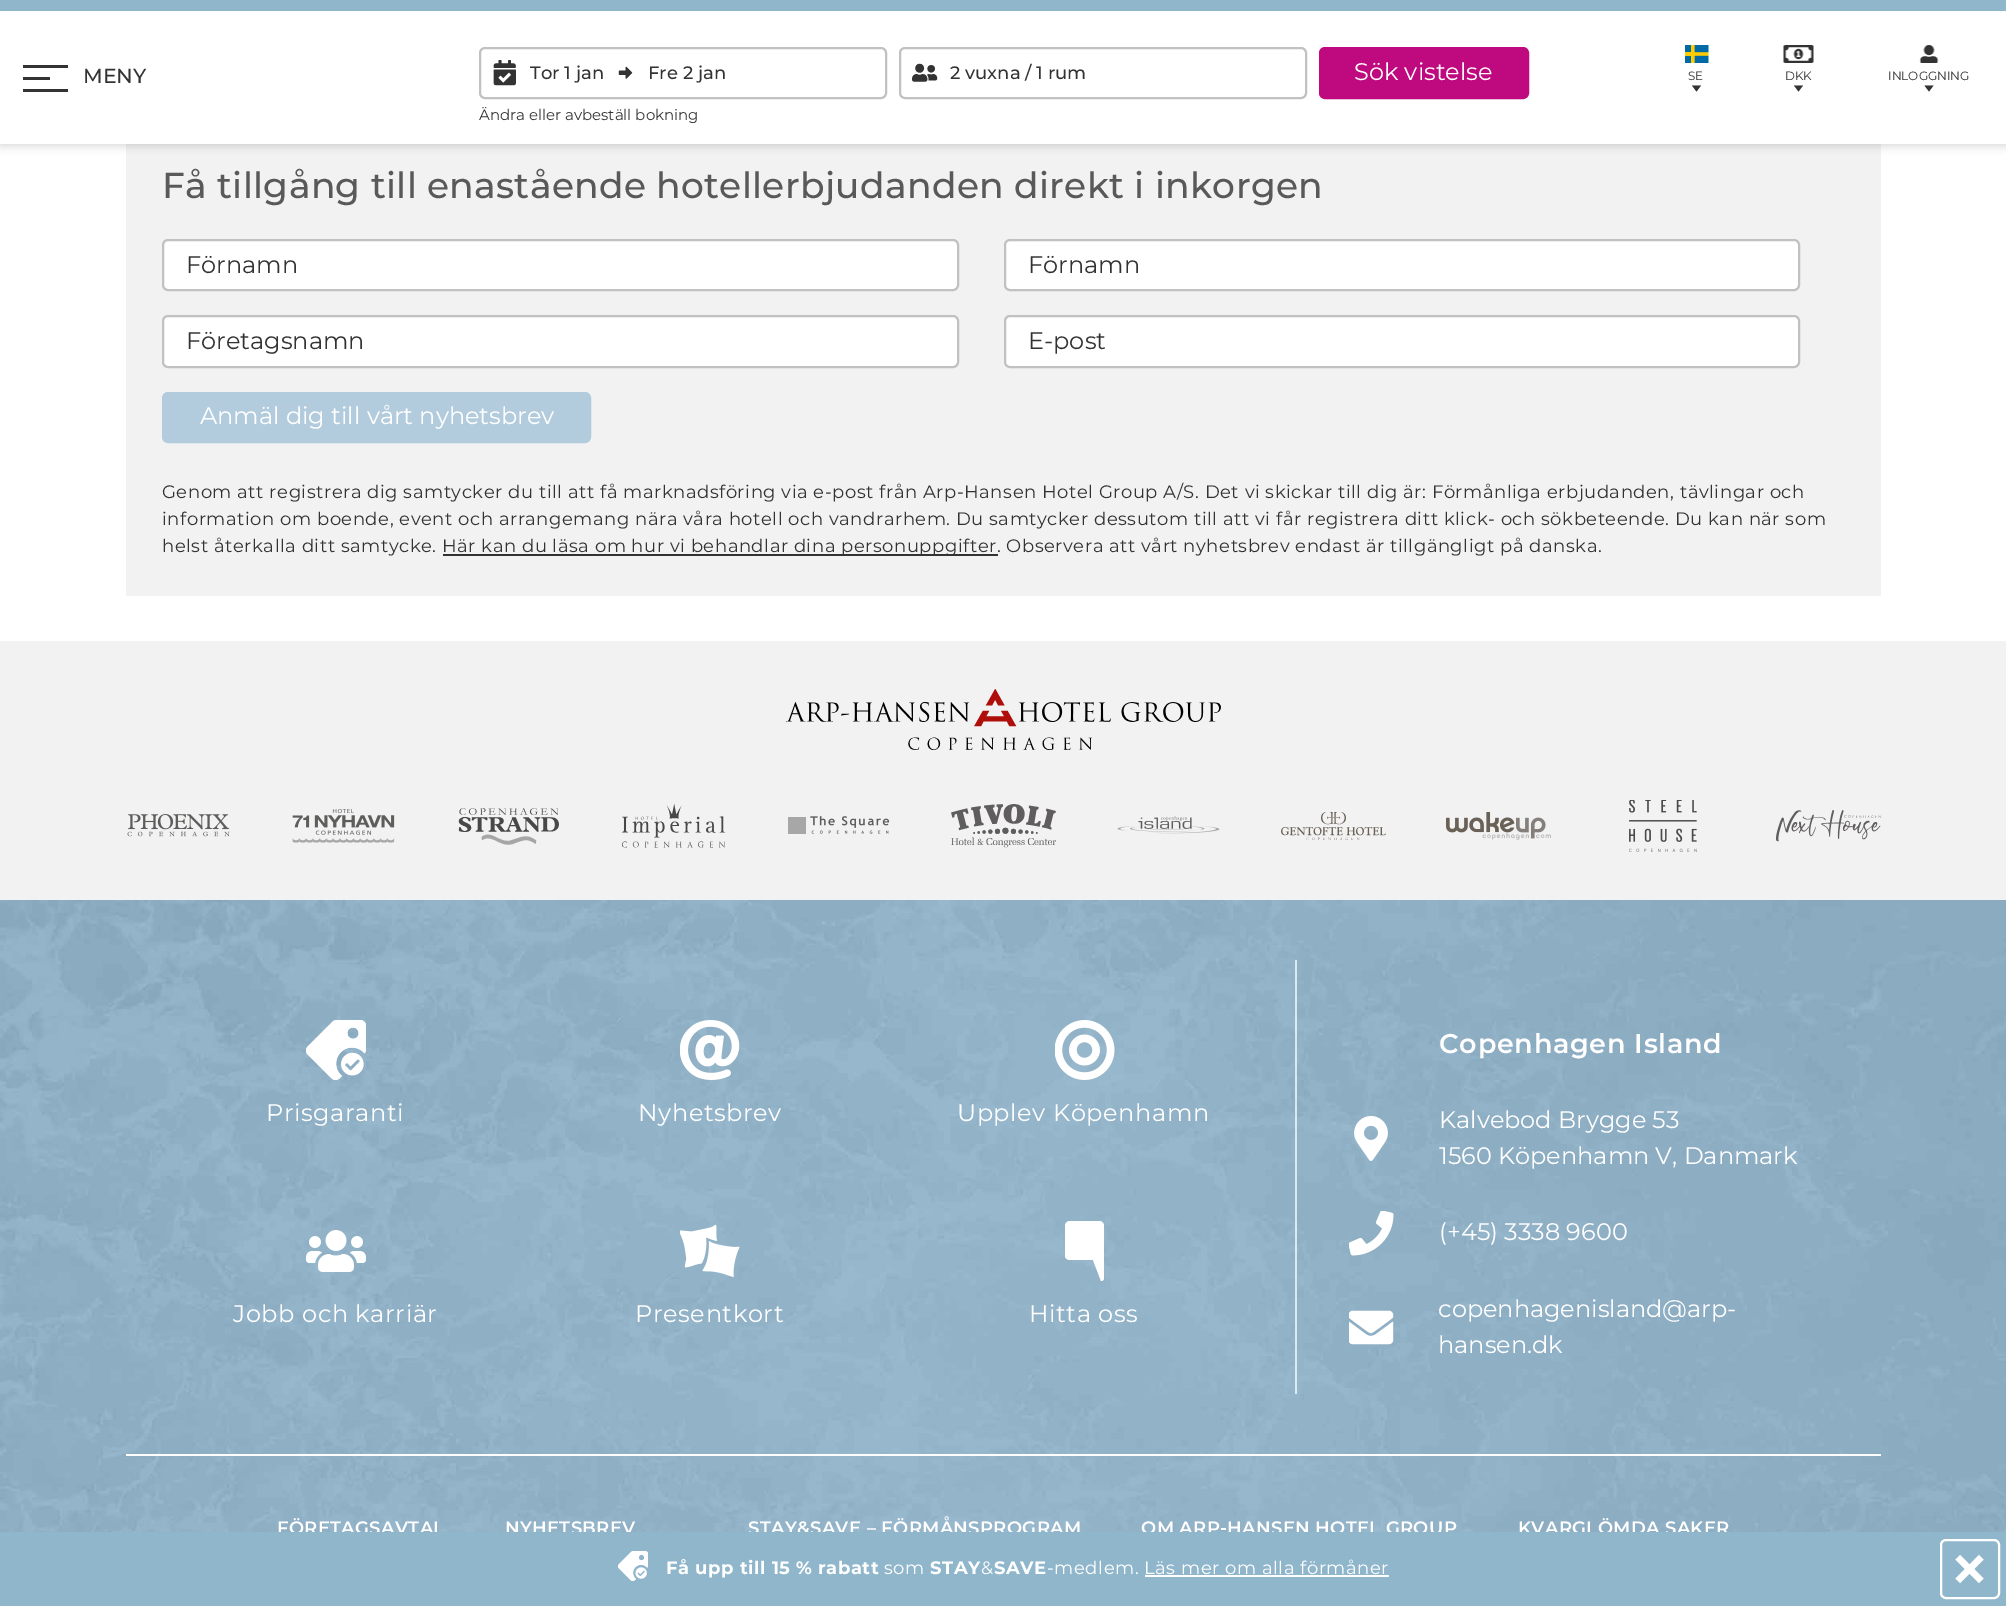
%!PS-Adobe-3.0
%%BoundingBox: 0 0 2006 1606
%%LanguageLevel: 3
%%Pages: 1
%%EndComments
%%BeginProlog
/setalpha { dup .setfillconstantalpha .setstrokeconstantalpha } def
/rrect { 5 dict begin { /r /h /w /y /x } { exch def } forall
  x r add y moveto x w add y 2 copy h add r arct x w add y h add x 1 index r arct
  x y h add x y r arct x y 2 copy exch w add exch r arct closepath end } def
/softshadow { 12 dict begin { /a /b /q /h /w /y /x } { exch def } forall gsave /was 0 def
  9 -2 -9 { dup b mul 4 div /e exch def 1 sub .425 mul 2.718 exch exp 1 add a .99 .min exch div /now exch def
    1 1 now sub 1 was sub div sub setalpha /was now def
    w h .min e 2 mul add 0 gt { x e sub y e sub w e 2 mul add h e 2 mul add
      q e add b .6 mul add w h .min 2 div e add .min 0 .max rrect fill } if } for grestore end } def
/drawimage { 5 dict begin { /h /w /y /x /name } { exch def } forall
  gsave x y translate w h scale
  w h 8 [w 0 0 h 0 0] name (r) file false 3 colorimage grestore end } def
%%EndProlog
%%BeginSetup
<< /PageSize [2006 1606] /PageUsesTransparency true >> setpagedevice
%%EndSetup
%%Page: 1 1
0 .pushpdf14devicefilter
0 1606 translate 1 -1 scale
4 setmiterlimit
1 setgray
0 0 2006 1606 rectfill
0.949 setgray
126 144 1755 452 rectfill
0 setgray
0 -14 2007 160 0 4.5 0.15 softshadow
0.565 0.714 0.8 setrgbcolor
0 0 2006 11 rectfill
1 setgray
0 11 2006 133 rectfill
0.2 setgray
23 65 45 3 rectfill
23 77 27 3 rectfill
23 89 45 3 rectfill
0.757 setgray
2 setlinewidth
480 48 406 50 5 rrect stroke
(images/1.raw) 493 60 23 26 drawimage
(images/2.raw) 618 66 15 13 drawimage
900 48 406 50 5 rrect stroke
(images/3.raw) 912 63 26 19 drawimage
0.745 0.035 0.498 setrgbcolor
1320 48 208 50 5 rrect gsave fill grestore
stroke
(images/4.raw) 1685 45 24 18 drawimage
0.2 setgray
newpath 1692 85.5 moveto 1701 85.5 lineto 1696.5 91.5 lineto closepath fill
(images/5.raw) 1783 45 31 18 drawimage
newpath 1794 85.5 moveto 1803 85.5 lineto 1798.5 91.5 lineto closepath fill
(images/6.raw) 1919 45 20 18 drawimage
newpath 1924.5 85.5 moveto 1933.5 85.5 lineto 1929 91.5 lineto closepath fill
1 setgray
163 240 795 50 5 rrect gsave fill grestore
0.757 setgray
stroke
1 setgray
1005 240 794 50 5 rrect gsave fill grestore
0.757 setgray
stroke
1 setgray
163 316 795 51 5 rrect gsave fill grestore
0.757 setgray
stroke
1 setgray
1005 316 794 51 5 rrect gsave fill grestore
0.757 setgray
stroke
0.702 0.8 0.867 setrgbcolor
163 393 427 49 5 rrect gsave fill grestore
stroke
0.2 setgray
443 554 555 2 rectfill
0.949 setgray
0 641 2006 259 rectfill
(images/7.raw) 786 689 435 61 drawimage
(images/8.raw) 127 814 103 23 drawimage
(images/9.raw) 292 809 103 34 drawimage
(images/10.raw) 458 808 101 37 drawimage
(images/11.raw) 621 803 104 45 drawimage
(images/12.raw) 788 816 102 18 drawimage
(images/13.raw) 951 804 105 44 drawimage
(images/14.raw) 1117 816 103 18 drawimage
(images/15.raw) 1281 812 105 28 drawimage
(images/16.raw) 1446 812 105 28 drawimage
(images/17.raw) 1629 800 68 52 drawimage
(images/18.raw) 1776 810 105 32 drawimage
(images/19.raw) 0 900 2006 632 drawimage
0.7 setalpha
1 setgray
1295 960 2 434 rectfill
1 setalpha
(images/20.raw) 306 1020 60 60 drawimage
(images/21.raw) 680 1020 60 60 drawimage
(images/22.raw) 1055 1020 60 60 drawimage
(images/23.raw) 306 1230 60 42 drawimage
(images/24.raw) 680 1224 60 54 drawimage
newpath 1093 1260 moveto 1070 1260 lineto 1067 1260 1065 1258 1065 1256 curveto 1065 1226 lineto 1065 1223 1067 1221 1070 1221 curveto 1099 1221 lineto 1102 1221 1104 1223 1104 1226 curveto 1104 1276 lineto 1104 1279 1104 1281 1101 1281 curveto closepath fill
(images/25.raw) 1354 1116 34 45 drawimage
(images/26.raw) 1349 1211 45 45 drawimage
(images/27.raw) 1349 1310 45 35 drawimage
126 1454 1755 2 rectfill
/Montserrat-Medium [20.5 0 0 -20.5 0 0] selectfont
0.2 setgray
83 83 moveto (MENY) show
/Montserrat-Medium [18 0 0 -18 0 0] selectfont
530 79 moveto (Tor 1 jan) show
648 79 moveto (Fre 2 jan) show
950 79 moveto (2 vuxna / 1 rum) show
/Montserrat-Regular [24 0 0 -24 0 0] selectfont
1 setgray
1354 80 moveto (Sök vistelse) show
/Montserrat-Regular [15 0 0 -15 0 0] selectfont
0.2 setgray
479 120 moveto (Ändra eller avbeställ bokning) show
/Montserrat-Regular [12 0 0 -12 0 0] selectfont
1688 80 moveto (SE) show
1785 80 moveto (DKK) show
1888 80 moveto (INLOGGNING) show
/Montserrat-Medium [36 0 0 -36 0 0] selectfont
0.349 setgray
162 198 moveto 0.35 0 (Få tillgång till enastående hotellerbjudanden direkt i inkorgen) ashow
/Montserrat-Regular [24 0 0 -24 0 0] selectfont
0.2 setgray
186 273 moveto (Förnamn) show
1028 273 moveto (Förnamn) show
186 349 moveto (Företagsnamn) show
1028 349 moveto (E-post) show
1 setgray
200 424 moveto (Anmäl dig till vårt nyhetsbrev) show
/Montserrat-Regular [18 0 0 -18 0 0] selectfont
0.2 setgray
162 498 moveto 0.54 0 (Genom att registrera dig samtycker du till att få marknadsföring via e-post från Arp-Hansen Hotel Group A/S. Det vi skickar till dig är: Förmånliga erbjudanden, tävlingar och) ashow
162 525 moveto 0.54 0 (information om boende, event och arrangemang nära våra hotell och vandrarhem. Du samtycker dessutom till att vi får registrera ditt klick- och sökbeteende. Du kan när som) ashow
162 552 moveto 0.54 0 (helst återkalla ditt samtycke.) ashow
442 552 moveto 0.54 0 (Här kan du läsa om hur vi behandlar dina personuppgifter. Observera att vårt nyhetsbrev endast är tillgängligt på danska.) ashow
/Montserrat-Regular [24 0 0 -24 0 0] selectfont
1 setgray
266 1121 moveto 0.6 0 (Prisgaranti) ashow
638 1121 moveto 0.6 0 (Nyhetsbrev) ashow
957 1121 moveto 0.6 0 (Upplev Köpenhamn) ashow
233 1322 moveto 0.6 0 (Jobb och karriär) ashow
635 1322 moveto 0.6 0 (Presentkort) ashow
1029 1322 moveto 0.6 0 (Hitta oss) ashow
/Montserrat-SemiBold [27 0 0 -27 0 0] selectfont
1439 1053 moveto 0.75 0 (Copenhagen Island) ashow
/Montserrat-Regular [24 0 0 -24 0 0] selectfont
1439 1128 moveto (Kalvebod Brygge 53) show
1439 1164 moveto (1560 Köpenhamn V, Danmark) show
1439 1240 moveto (\(+45\) 3338 9600) show
1438 1317 moveto (copenhagenisland@arp-) show
1438 1353 moveto (hansen.dk) show
/Montserrat-SemiBold [18 0 0 -18 0 0] selectfont
277 1534 moveto 0.35 0 (FÖRETAGSAVTAL) ashow
505 1534 moveto 0.35 0 (NYHETSBREV) ashow
748 1534 moveto 0.35 0 (STAY&SAVE – FÖRMÅNSPROGRAM) ashow
1141 1534 moveto 0.35 0 (OM ARP-HANSEN HOTEL GROUP) ashow
1518 1534 moveto 0.35 0 (KVARGLÖMDA SAKER) ashow
0.565 0.714 0.8 setrgbcolor
0 1532 2006 74 rectfill
(images/28.raw) 618 1551 30 30 drawimage
/Montserrat-Bold [18 0 0 -18 0 0] selectfont
1 setgray
666 1574 moveto 0.54 0 (Få upp till 15) ashow
796 1574 moveto 0.54 0 (% rabatt) ashow
/Montserrat-Regular [18 0 0 -18 0 0] selectfont
884 1574 moveto 0.54 0 (som) ashow
/Montserrat-Bold [18 0 0 -18 0 0] selectfont
930 1574 moveto 0.54 0 (STAY) ashow
/Montserrat-Regular [18 0 0 -18 0 0] selectfont
981 1574 moveto 0.54 0 (&) ashow
/Montserrat-Bold [18 0 0 -18 0 0] selectfont
994 1574 moveto 0.54 0 (SAVE) ashow
/Montserrat-Regular [18 0 0 -18 0 0] selectfont
1047 1574 moveto 0.54 0 (-medlem. Läs mer om alla förmåner) ashow
1145 1575 244 2 rectfill
1941 1540 58 58 5 rrect stroke
(images/29.raw) 1955 1554 29 30 drawimage
.poppdf14devicefilter showpage
%%EOF
